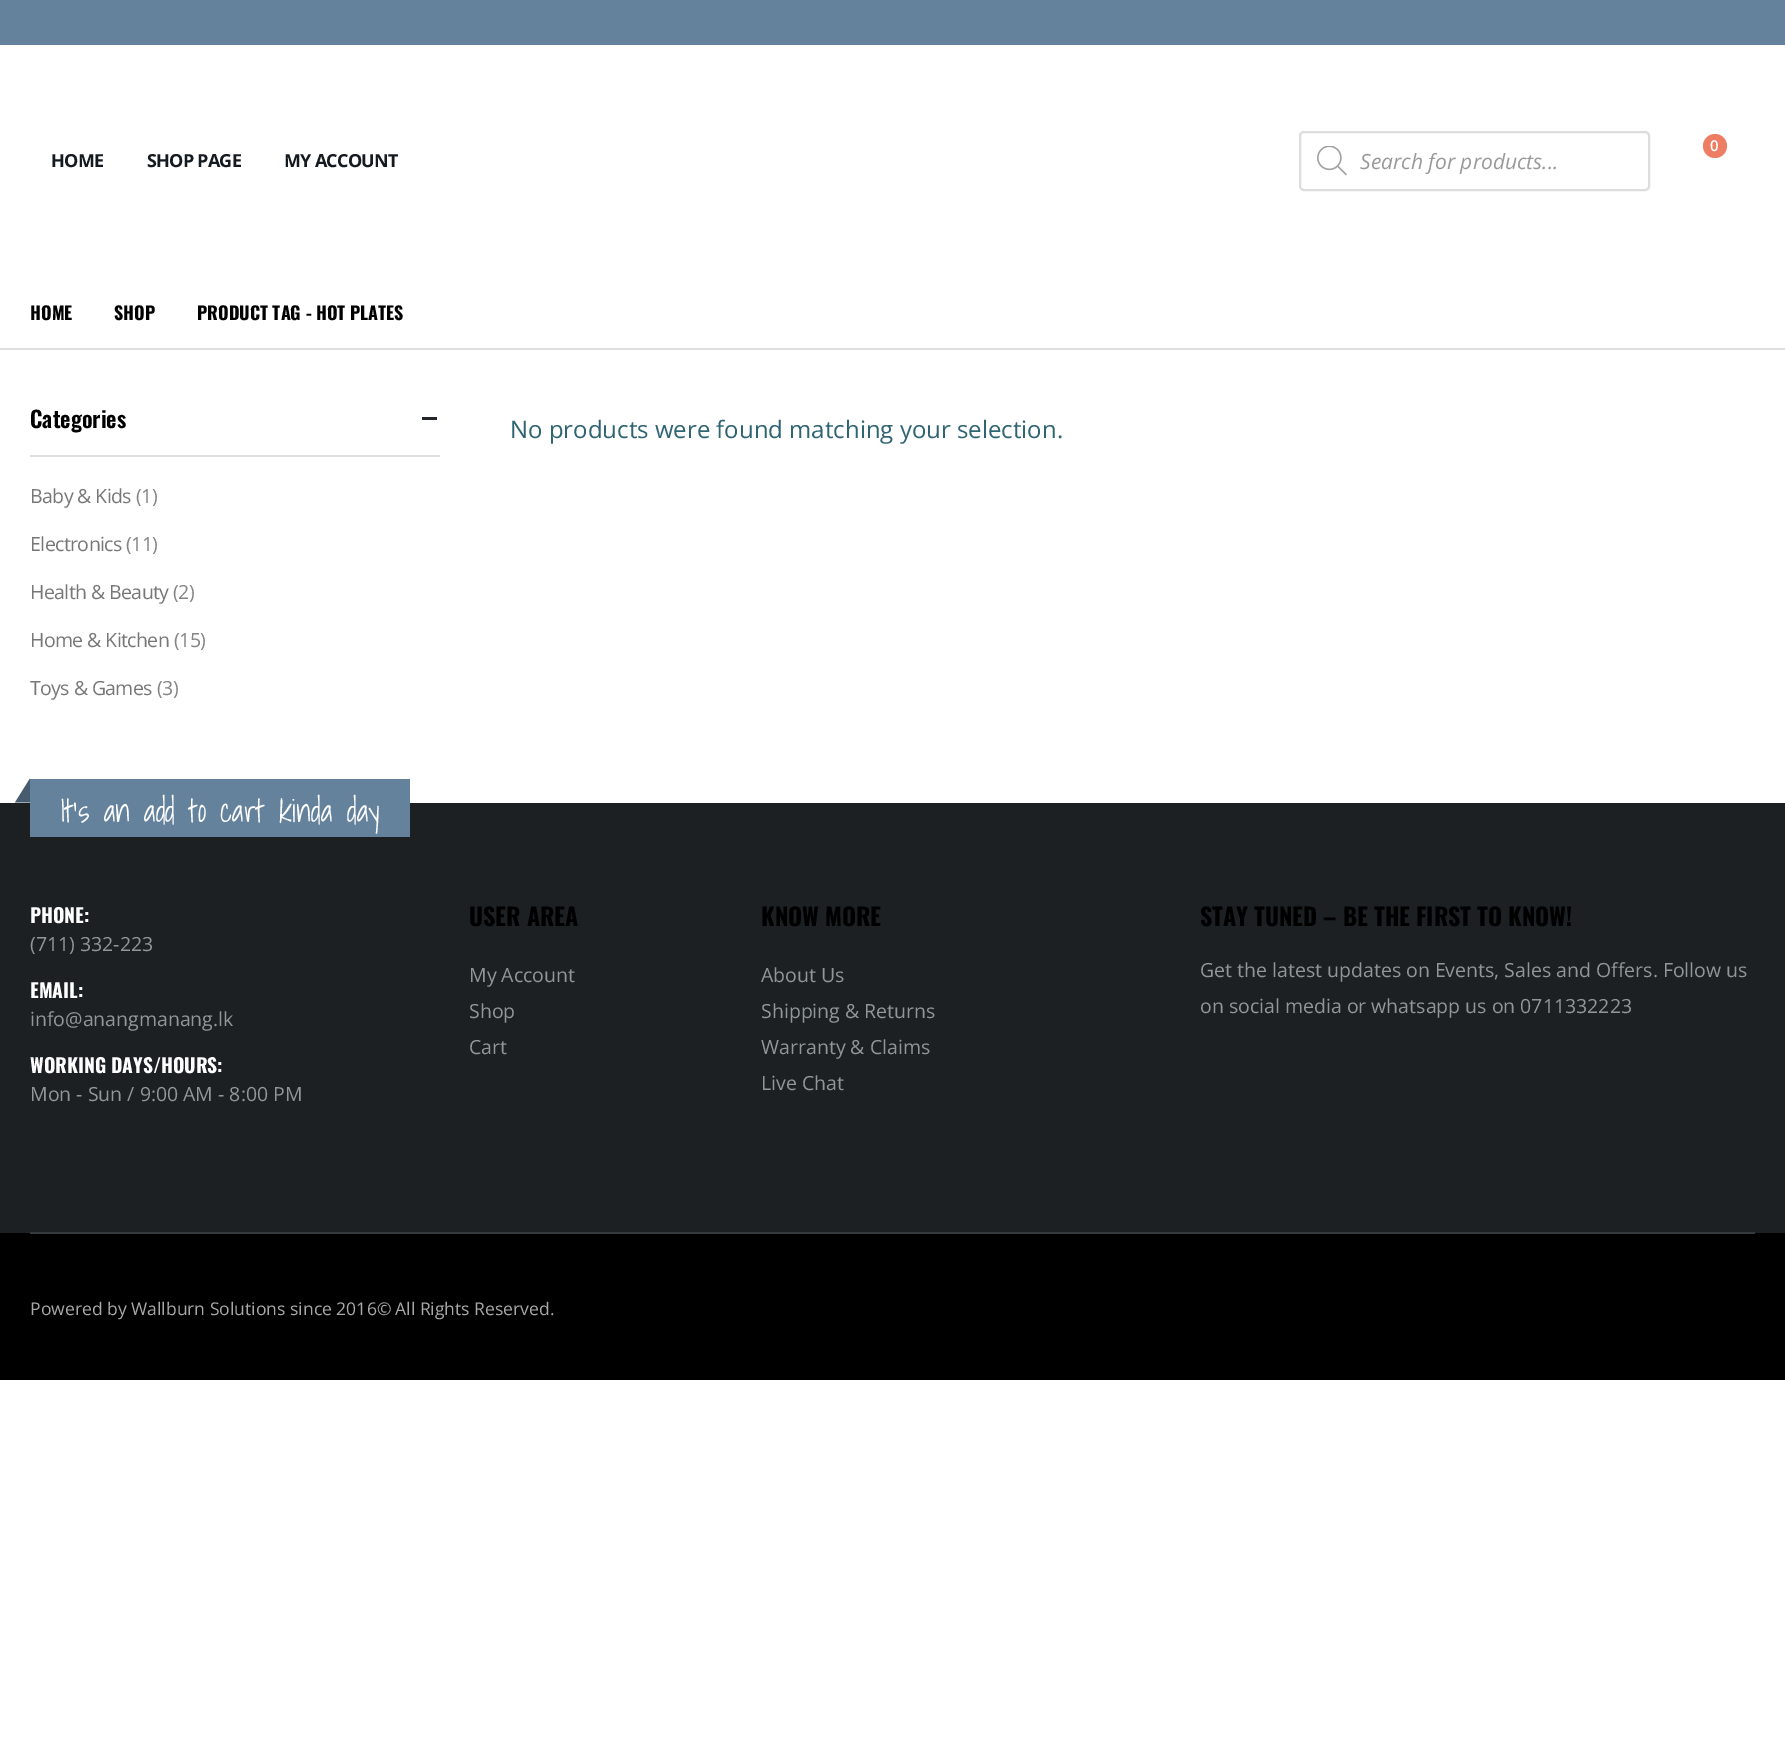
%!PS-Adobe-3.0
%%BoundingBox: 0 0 1785 1754
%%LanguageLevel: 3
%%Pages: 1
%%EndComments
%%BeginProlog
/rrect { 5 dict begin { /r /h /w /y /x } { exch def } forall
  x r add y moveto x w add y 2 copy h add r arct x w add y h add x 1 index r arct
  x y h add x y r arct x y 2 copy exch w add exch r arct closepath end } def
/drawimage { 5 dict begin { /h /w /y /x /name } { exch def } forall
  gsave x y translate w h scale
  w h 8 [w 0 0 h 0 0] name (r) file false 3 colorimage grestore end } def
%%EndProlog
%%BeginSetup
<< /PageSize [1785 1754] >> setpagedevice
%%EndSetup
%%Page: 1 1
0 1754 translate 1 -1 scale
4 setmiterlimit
1 setgray
0 0 1785 1754 rectfill
0.396 0.51 0.616 setrgbcolor
0 0 1785 45 rectfill
0.929 0.494 0.388 setrgbcolor
newpath 1715 146 12 0 360 arc closepath fill
0.867 setgray
2 setlinewidth
1300 132 349 58 4 rrect stroke
(images/1.raw) 1317 146 30 30 drawimage
0.875 setgray
0 348 1785 2 rectfill
30 455 410 2 rectfill
0.133 0.145 0.161 setrgbcolor
422 417 15 3 rectfill
0.11 0.125 0.137 setrgbcolor
0 803 1785 430 rectfill
0.396 0.51 0.616 setrgbcolor
30 779 380 58 rectfill
0.278 0.361 0.435 setrgbcolor
newpath 30 778.5 moveto 30 802.5 lineto 15 802.5 lineto closepath fill
0 setgray
0 1233 1785 147 rectfill
0.208 0.227 0.243 setrgbcolor
30 1232 1725 2 rectfill
/OpenSans-Bold [18 0 0 -18 0 0] selectfont
0.078 0.102 0.122 setrgbcolor
51 167 moveto -0.75 0 (HOME) ashow
147 167 moveto -0.75 0 (SHOP PAGE) ashow
284 167 moveto -0.75 0 (MY ACCOUNT) ashow
/OpenSans-SemiBold [15 0 0 -15 0 0] selectfont
1 setgray
1710 151 moveto (0) show
/OpenSans-Italic [21 0 0 -21 0 0] selectfont
0.6 setgray
1360 169 moveto (Search for products...) show
/Oswald-Bold [18 0 0 -18 0 0] selectfont
0 setgray
30 320 moveto (HOME) show
114 320 moveto (SHOP) show
197 320 moveto (PRODUCT TAG - HOT PLATES) show
/Oswald-SemiBold [22.5 0 0 -22.5 0 0] selectfont
30 428 moveto (Categories) show
/OpenSans-Regular [19.5 0 0 -19.5 0 0] selectfont
0.467 setgray
30 503 moveto -0.6 0 (Baby & Kids) ashow
0.518 setgray
136 503 moveto -0.6 0 (\(1\)) ashow
0.467 setgray
30 551 moveto -0.6 0 (Electronics) ashow
0.518 setgray
126 551 moveto -0.6 0 (\(11\)) ashow
0.467 setgray
30 599 moveto -0.6 0 (Health & Beauty) ashow
0.518 setgray
173 599 moveto -0.6 0 (\(2\)) ashow
0.467 setgray
30 647 moveto -0.6 0 (Home & Kitchen) ashow
0.518 setgray
174 647 moveto -0.6 0 (\(15\)) ashow
0.467 setgray
30 695 moveto -0.6 0 (Toys & Games) ashow
0.518 setgray
157 695 moveto -0.6 0 (\(3\)) ashow
/OpenSans-Regular [24 0 0 -24 0 0] selectfont
0.184 0.392 0.451 setrgbcolor
510 438 moveto (No products were found matching your selection.) show
/ShadowsIntoLight-Regular [31.25 0 0 -31.25 0 0] selectfont
1 setgray
60 822 moveto (It's an add to cart kinda day) show
/Oswald-Bold [19.5 0 0 -19.5 0 0] selectfont
30 923 moveto (PHONE:) show
/OpenSans-Regular [19.5 0 0 -19.5 0 0] selectfont
0.565 0.588 0.604 setrgbcolor
30 951 moveto (\(711\) 332-223) show
/Oswald-Bold [19.5 0 0 -19.5 0 0] selectfont
1 setgray
30 998 moveto (EMAIL:) show
/OpenSans-Regular [19.5 0 0 -19.5 0 0] selectfont
0.565 0.588 0.604 setrgbcolor
30 1026 moveto (info@anangmanang.lk) show
/Oswald-Bold [19.5 0 0 -19.5 0 0] selectfont
1 setgray
30 1073 moveto (WORKING DAYS/HOURS:) show
/OpenSans-Regular [19.5 0 0 -19.5 0 0] selectfont
0.565 0.588 0.604 setrgbcolor
30 1101 moveto (Mon - Sun / 9:00 AM - 8:00 PM) show
/Oswald-Bold [24 0 0 -24 0 0] selectfont
0 setgray
469 926 moveto (USER AREA) show
/OpenSans-Regular [19.5 0 0 -19.5 0 0] selectfont
0.565 0.588 0.604 setrgbcolor
469 982 moveto (My Account) show
469 1018 moveto (Shop) show
469 1054 moveto (Cart) show
/Oswald-Bold [24 0 0 -24 0 0] selectfont
0 setgray
761 926 moveto (KNOW MORE) show
/OpenSans-Regular [19.5 0 0 -19.5 0 0] selectfont
0.565 0.588 0.604 setrgbcolor
761 982 moveto (About Us) show
761 1018 moveto (Shipping & Returns) show
761 1054 moveto (Warranty & Claims) show
761 1090 moveto (Live Chat) show
/Oswald-Bold [24 0 0 -24 0 0] selectfont
0 setgray
1200 926 moveto (STAY TUNED – BE THE FIRST TO KNOW!) show
/OpenSans-Regular [19.5 0 0 -19.5 0 0] selectfont
0.565 0.588 0.604 setrgbcolor
1200 977 moveto (Get the latest updates on Events, Sales and Offers. Follow us) show
1200 1013 moveto (on social media or whatsapp us on 0711332223) show
/OpenSans-Regular [17.55 0 0 -17.55 0 0] selectfont
0.659 setgray
30 1315 moveto (Powered by Wallburn Solutions since 2016©) show
395 1315 moveto (All Rights Reserved.) show
showpage
%%EOF
